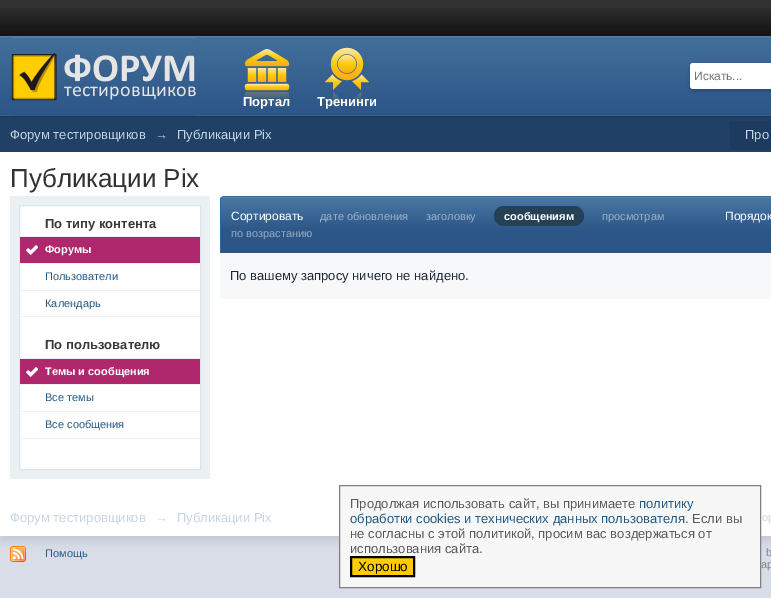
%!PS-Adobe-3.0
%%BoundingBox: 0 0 771 598
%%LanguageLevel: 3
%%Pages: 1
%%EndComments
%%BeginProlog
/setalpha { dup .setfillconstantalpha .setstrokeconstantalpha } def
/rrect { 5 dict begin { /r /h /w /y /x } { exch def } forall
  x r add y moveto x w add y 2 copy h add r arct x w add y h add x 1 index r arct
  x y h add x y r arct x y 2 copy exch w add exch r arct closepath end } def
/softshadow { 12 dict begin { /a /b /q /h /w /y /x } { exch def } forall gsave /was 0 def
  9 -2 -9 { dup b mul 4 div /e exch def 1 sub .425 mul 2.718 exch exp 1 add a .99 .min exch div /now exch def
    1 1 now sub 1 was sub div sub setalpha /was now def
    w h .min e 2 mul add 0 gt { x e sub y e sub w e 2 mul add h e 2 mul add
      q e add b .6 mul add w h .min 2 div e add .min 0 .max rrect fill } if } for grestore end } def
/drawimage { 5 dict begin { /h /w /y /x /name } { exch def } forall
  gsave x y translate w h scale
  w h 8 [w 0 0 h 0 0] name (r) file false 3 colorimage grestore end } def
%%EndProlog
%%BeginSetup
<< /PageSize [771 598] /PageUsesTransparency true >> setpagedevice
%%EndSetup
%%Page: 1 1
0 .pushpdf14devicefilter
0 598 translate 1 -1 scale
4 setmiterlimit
0.847 0.867 0.91 setrgbcolor
0 0 771 598 rectfill
0.196 setgray
0 0 771 8 rectfill
(images/1.raw) 0 8 771 28 drawimage
(images/2.raw) 0 36 771 80 drawimage
0.106 0.216 0.349 setrgbcolor
0 116 771 1 rectfill
(images/3.raw) 10 37 187 79 drawimage
0 setgray
690 65 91 26 4 2 0.2 softshadow
1 setgray
newpath 693 63 moveto 771 63 lineto 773 63 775 65 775 67 curveto 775 85 lineto 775 87 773 89 771 89 curveto 693 89 lineto 691.5 89 690 87.5 690 86 curveto 690 66 lineto 690 64.5 691.5 63 693 63 curveto closepath fill
(images/4.raw) 244 49 46 55 drawimage
(images/5.raw) 325 47 44 57 drawimage
0.125 0.251 0.4 setrgbcolor
0 117 771 35 rectfill
0 setgray
0 157 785 384 0 4.5 0.1 softshadow
0.11 0.231 0.373 setrgbcolor
730 121 41 29 rectfill
1 setgray
0 152 771 384 rectfill
0.922 0.941 0.953 setrgbcolor
10 196 200 283 rectfill
1 setgray
newpath 19.5 205.5 moveto 200.5 205.5 lineto 200.5 469.5 lineto 19.5 469.5 lineto closepath gsave fill grestore
0.859 0.894 0.937 setrgbcolor
stroke
0.929 0.945 0.961 setrgbcolor
20 236 180 1 rectfill
20 263 180 1 rectfill
0.686 0.157 0.427 setrgbcolor
20 237 180 26 rectfill
(images/6.raw) 26 245 12 10 drawimage
0.929 0.945 0.961 setrgbcolor
20 290 180 1 rectfill
20 316 180 1 rectfill
20 358 180 1 rectfill
20 384 180 1 rectfill
0.686 0.157 0.427 setrgbcolor
20 359 180 25 rectfill
(images/6.raw) 26 367 12 10 drawimage
0.929 0.945 0.961 setrgbcolor
20 411 180 1 rectfill
20 438 180 1 rectfill
0.173 0.337 0.529 setrgbcolor
221 232 550 21 rectfill
(images/7.raw) 220 197 551 35 drawimage
0.322 0.549 0.737 setrgbcolor
newpath 224 198 moveto 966 198 lineto 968 198 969 199 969 201 curveto 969 199 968 197 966 197 curveto 224 197 lineto 222 197 221 199 221 201 curveto 221 199 222 198 224 198 curveto closepath fill
0.192 0.408 0.592 setrgbcolor
newpath 224 196 moveto 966 196 lineto 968 196 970 198 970 200 curveto 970 253 lineto 220 253 lineto 220 200 lineto 220 198 222 196 224 196 curveto closepath 224 197 moveto 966 197 lineto 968 197 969 198 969 200 curveto 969 253 lineto 221 253 lineto 221 200 lineto 221 198 222 197 224 197 curveto closepath eofill
0.141 0.255 0.337 setrgbcolor
494 206 90 20 10 rrect fill
0.965 0.973 0.98 setrgbcolor
220 253 551 46 rectfill
0.969 setgray
newpath 339.5 485.5 moveto 760.5 485.5 lineto 760.5 587.5 lineto 339.5 587.5 lineto closepath gsave fill grestore
0.502 setgray
stroke
1 0.8 0 setrgbcolor
newpath 351 557 moveto 414 557 lineto 414 576 lineto 351 576 lineto closepath gsave fill grestore
0 setgray
2 setlinewidth
stroke
(images/8.raw) 10 546 16 16 drawimage
/LiberationSans-Regular [12 0 0 -12 0 0] selectfont
0.459 setgray
694 80 moveto (Искать...) show
/LiberationSans-Bold [13 0 0 -13 0 0] selectfont
1 setgray
243 106 moveto (Портал) show
317 106 moveto (Тренинги) show
/LiberationSans-Regular [13 0 0 -13 0 0] selectfont
0.773 0.835 0.886 setrgbcolor
10 139 moveto (Форум тестировщиков) show
155 139 moveto (→) show
177 139 moveto (Публикации Pix) show
745 139 moveto (Про) show
/LiberationSans-Regular [26 0 0 -26 0 0] selectfont
0.196 setgray
10 187 moveto (Публикации Pix) show
/LiberationSans-Bold [13 0 0 -13 0 0] selectfont
0.22 setgray
45 228 moveto (По типу контента) show
/LiberationSans-Bold [11 0 0 -11 0 0] selectfont
1 setgray
45 253 moveto (Форумы) show
/LiberationSans-Regular [11 0 0 -11 0 0] selectfont
0.133 0.349 0.522 setrgbcolor
45 280 moveto (Пользователи) show
45 307 moveto (Календарь) show
/LiberationSans-Bold [13 0 0 -13 0 0] selectfont
0.22 setgray
45 349 moveto (По пользователю) show
/LiberationSans-Bold [11 0 0 -11 0 0] selectfont
1 setgray
45 375 moveto (Темы и сообщения) show
/LiberationSans-Regular [11 0 0 -11 0 0] selectfont
0.133 0.349 0.522 setrgbcolor
45 401 moveto (Все темы) show
45 428 moveto (Все сообщения) show
/LiberationSans-Regular [12 0 0 -12 0 0] selectfont
1 setgray
231 220 moveto (Сортировать) show
/LiberationSans-Regular [11 0 0 -11 0 0] selectfont
0.608 0.694 0.788 setrgbcolor
320 220 moveto (дате обновления) show
426 220 moveto (заголовку) show
/LiberationSans-Bold [11 0 0 -11 0 0] selectfont
1 setgray
504 220 moveto (сообщениям) show
/LiberationSans-Regular [11 0 0 -11 0 0] selectfont
0.608 0.694 0.788 setrgbcolor
602 220 moveto (просмотрам) show
/LiberationSans-Regular [12 0 0 -12 0 0] selectfont
1 setgray
725 220 moveto (Порядок) show
/LiberationSans-Regular [11 0 0 -11 0 0] selectfont
0.588 0.671 0.765 setrgbcolor
231 237 moveto (по возрастанию) show
/LiberationSans-Regular [13 0 0 -13 0 0] selectfont
0.11 0.157 0.216 setrgbcolor
230 280 moveto (По вашему запросу ничего не найдено.) show
0.773 0.835 0.886 setrgbcolor
10 522 moveto (Форум тестировщиков) show
155 522 moveto (→) show
177 522 moveto (Публикации Pix) show
/LiberationSans-Regular [11 0 0 -11 0 0] selectfont
762 521 moveto (ор) show
/LiberationSans-Regular [13 0 0 -13 0 0] selectfont
0.353 setgray
350 508 moveto (Продолжая использовать сайт, вы принимаете) show
0.133 0.349 0.522 setrgbcolor
639 508 moveto (политику) show
350 523 moveto (обработки cookies и технических данных пользователя) show
0.353 setgray
685 523 moveto (. Если вы) show
350 538 moveto (не согласны с этой политикой, просим вас воздержаться от) show
350 553 moveto (использования сайта.) show
/LiberationSans-Regular [13.5 0 0 -13.5 0 0] selectfont
0 setgray
358 571 moveto (Хорошо) show
/LiberationSans-Regular [11 0 0 -11 0 0] selectfont
0.133 0.349 0.522 setrgbcolor
45 557 moveto (Помощь) show
0.518 setgray
766 556 moveto (b) show
761 568 moveto (ар) show
.poppdf14devicefilter showpage
%%EOF
